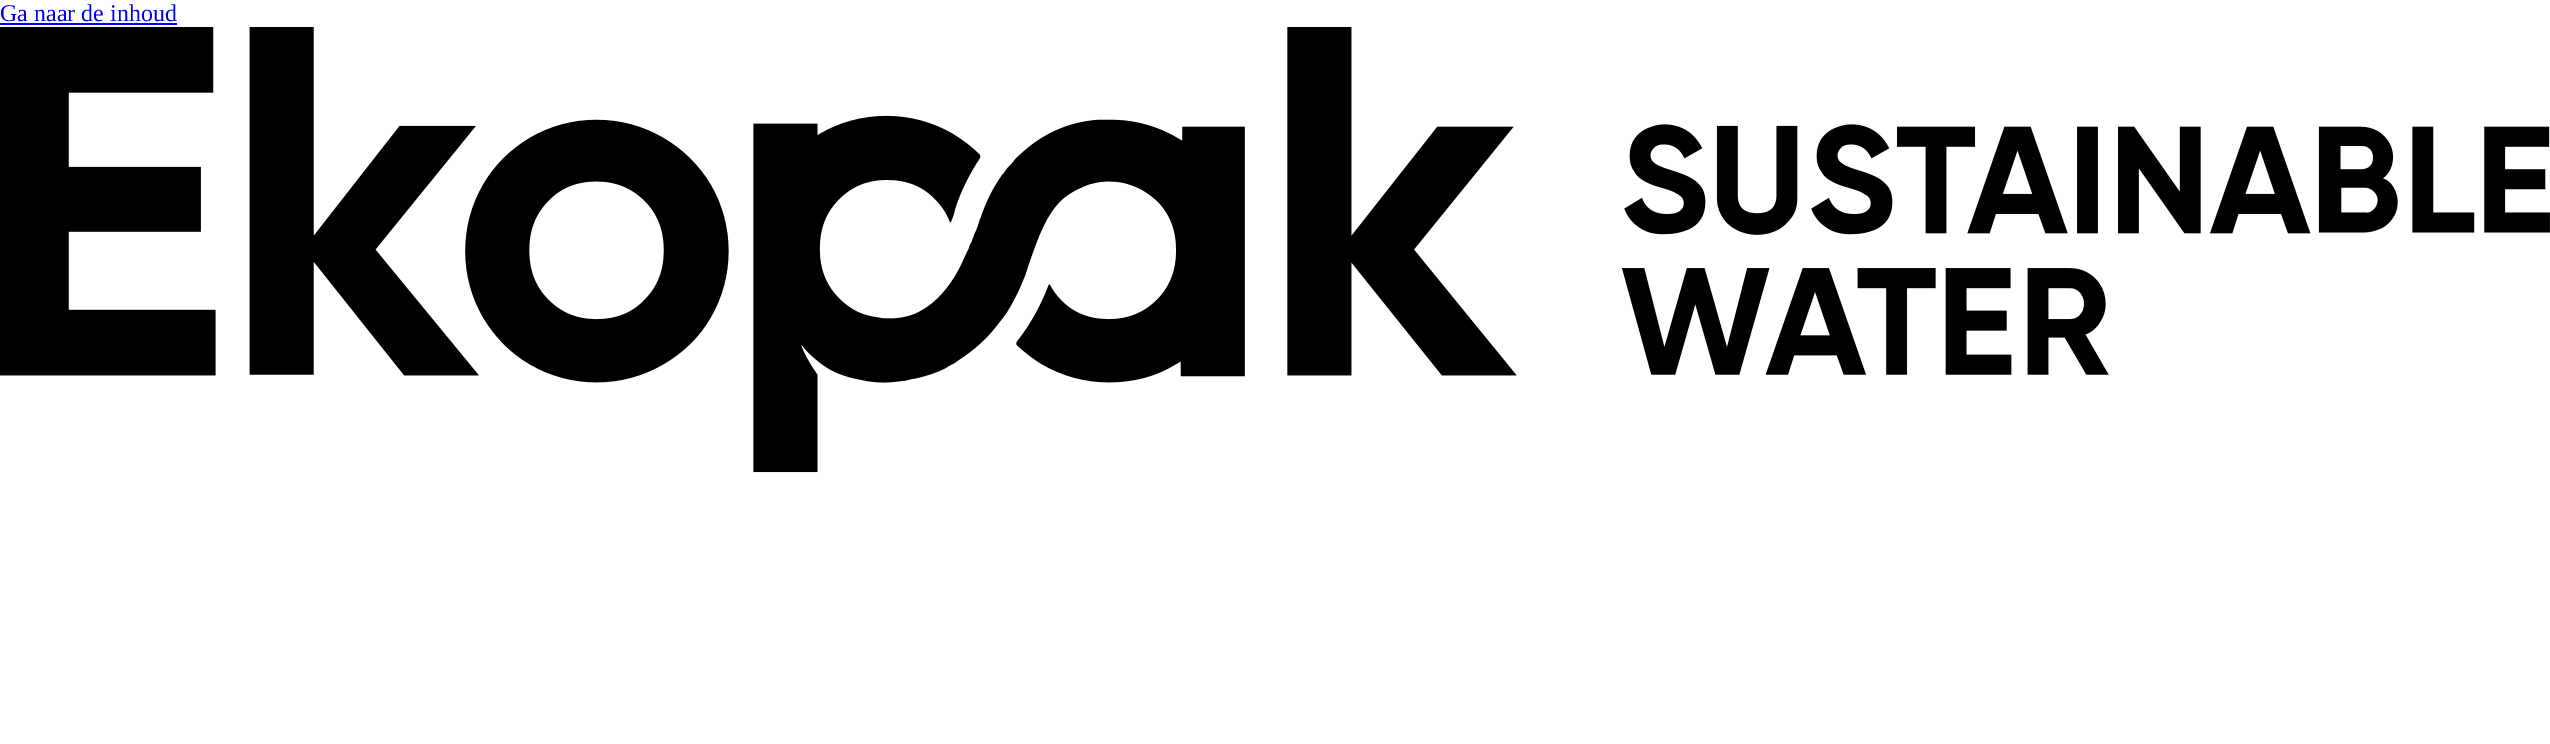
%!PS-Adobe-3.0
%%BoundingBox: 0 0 2550 744
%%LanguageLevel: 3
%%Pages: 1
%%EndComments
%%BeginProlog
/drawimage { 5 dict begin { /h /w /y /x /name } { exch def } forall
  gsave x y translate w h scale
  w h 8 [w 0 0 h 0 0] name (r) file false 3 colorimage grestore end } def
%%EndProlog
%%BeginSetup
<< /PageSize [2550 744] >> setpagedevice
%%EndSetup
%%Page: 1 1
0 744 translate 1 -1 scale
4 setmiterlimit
1 setgray
0 0 2550 744 rectfill
0 0 0.933 setrgbcolor
0 23 177 2 rectfill
(images/1.raw) 0 27 2550 446 drawimage
/LiberationSerif-Regular [24 0 0 -24 0 0] selectfont
0 21 moveto (Ga naar de inhoud) show
showpage
%%EOF
